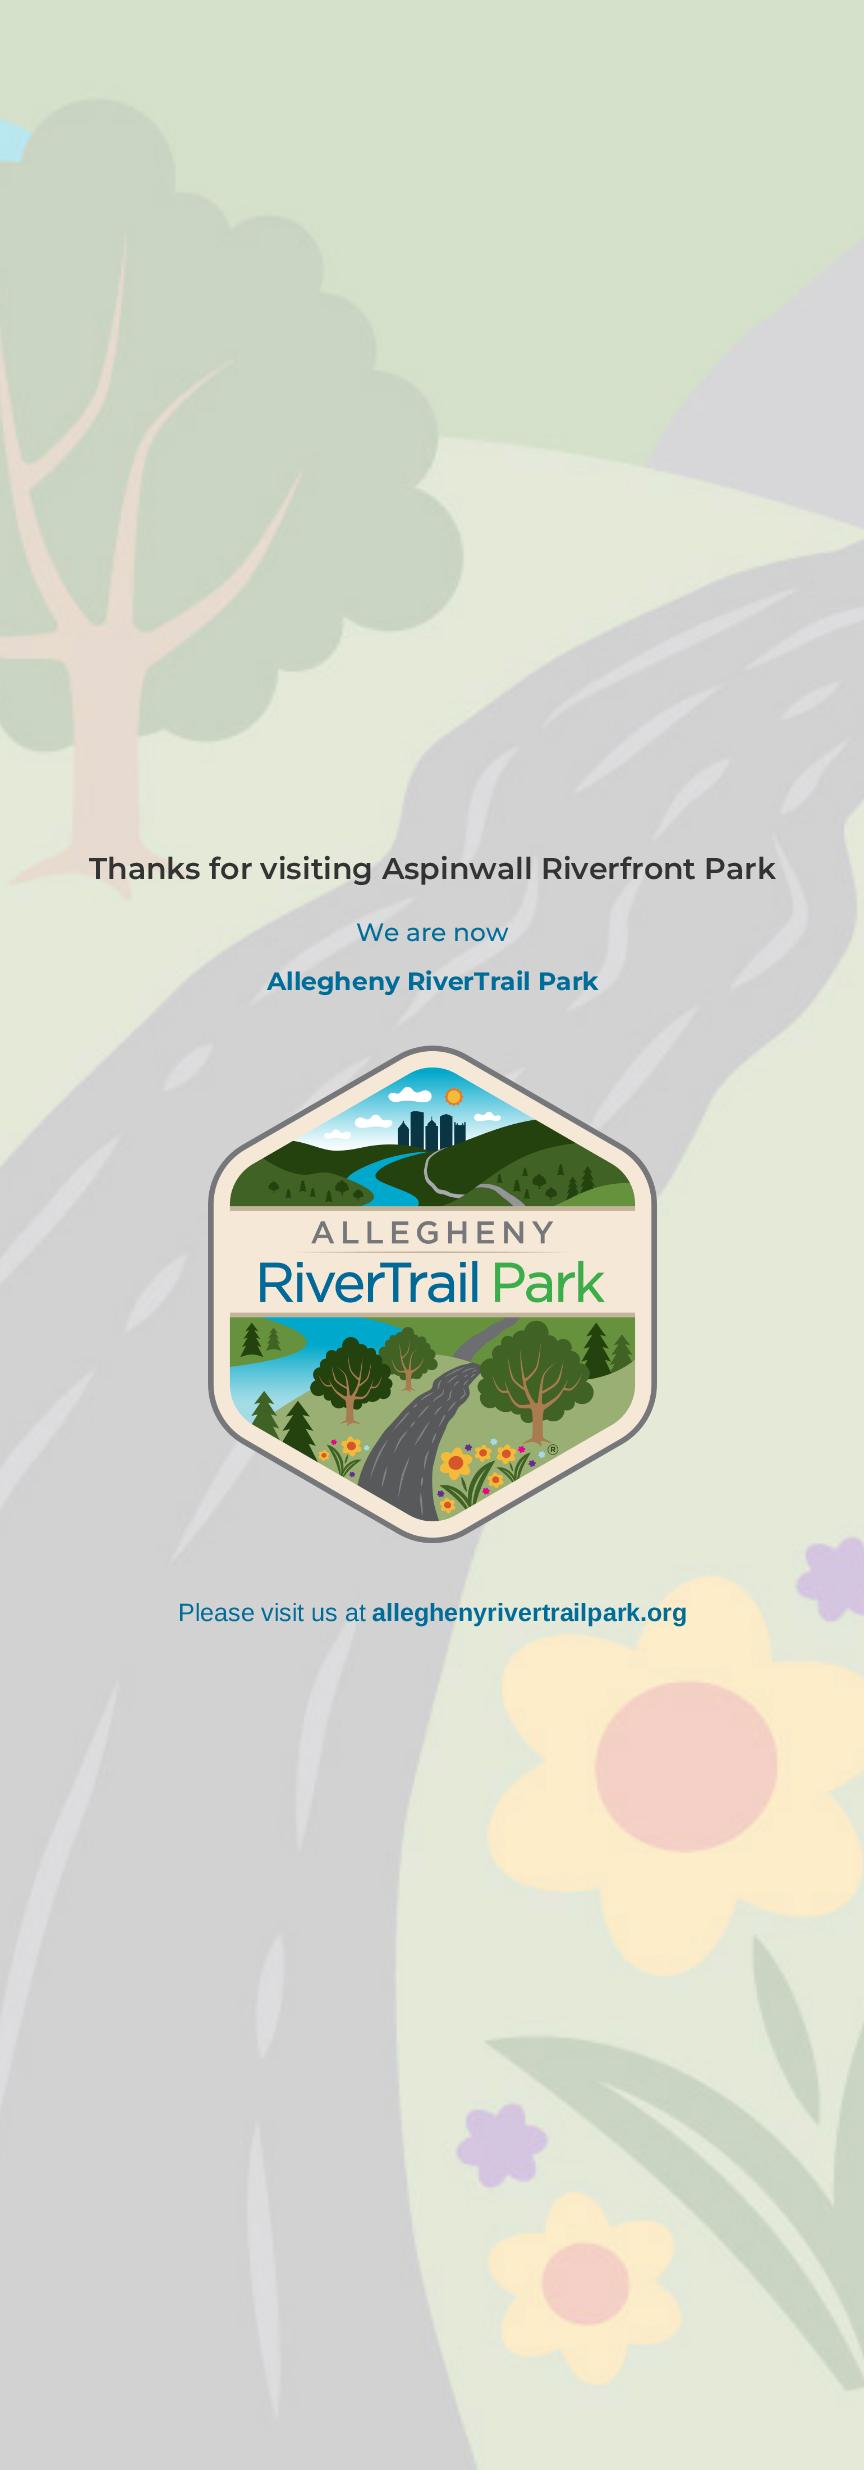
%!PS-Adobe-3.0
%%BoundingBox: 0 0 864 2470
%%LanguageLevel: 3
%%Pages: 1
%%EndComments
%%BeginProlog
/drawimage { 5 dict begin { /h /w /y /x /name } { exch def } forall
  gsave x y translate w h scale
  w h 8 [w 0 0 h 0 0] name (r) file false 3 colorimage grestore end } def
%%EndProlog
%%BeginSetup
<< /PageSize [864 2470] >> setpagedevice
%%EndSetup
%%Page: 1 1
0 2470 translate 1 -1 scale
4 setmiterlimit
1 setgray
0 0 864 2470 rectfill
(images/1.raw) 0 0 864 2470 drawimage
(images/2.raw) 208 1045 449 498 drawimage
/Montserrat-SemiBold [30 0 0 -30 0 0] selectfont
0.2 setgray
89 879 moveto (Thanks for visiting Aspinwall Riverfront Park) show
/Montserrat-Medium [25 0 0 -25 0 0] selectfont
0 0.424 0.6 setrgbcolor
356 941 moveto (We are now) show
/Montserrat-Bold [25 0 0 -25 0 0] selectfont
267 990 moveto (Allegheny RiverTrail Park) show
/LiberationSans-Regular [25 0 0 -25 0 0] selectfont
178 1621 moveto (Please visit us at) show
/LiberationSans-Bold [25 0 0 -25 0 0] selectfont
372 1621 moveto (alleghenyrivertrailpark.org) show
showpage
%%EOF
